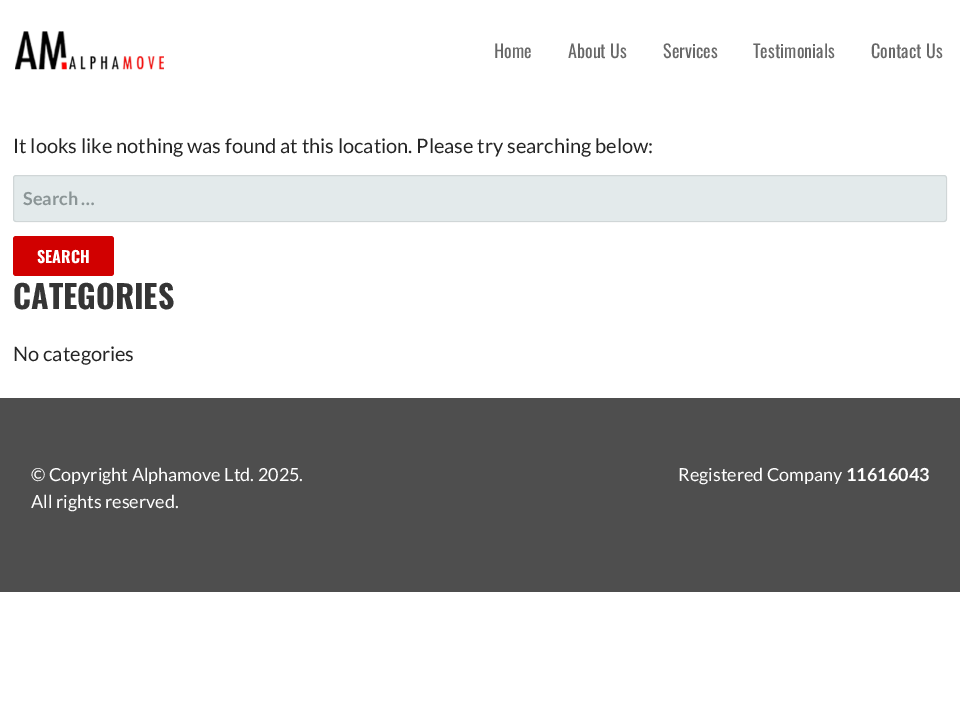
%!PS-Adobe-3.0
%%BoundingBox: 0 0 960 718
%%LanguageLevel: 3
%%Pages: 1
%%EndComments
%%BeginProlog
/setalpha { dup .setfillconstantalpha .setstrokeconstantalpha } def
/rrect { 5 dict begin { /r /h /w /y /x } { exch def } forall
  x r add y moveto x w add y 2 copy h add r arct x w add y h add x 1 index r arct
  x y h add x y r arct x y 2 copy exch w add exch r arct closepath end } def
/drawimage { 5 dict begin { /h /w /y /x /name } { exch def } forall
  gsave x y translate w h scale
  w h 8 [w 0 0 h 0 0] name (r) file false 3 colorimage grestore end } def
%%EndProlog
%%BeginSetup
<< /PageSize [960 718] /PageUsesTransparency true >> setpagedevice
%%EndSetup
%%Page: 1 1
0 .pushpdf14devicefilter
0 718 translate 1 -1 scale
4 setmiterlimit
1 setgray
0 0 960 718 rectfill
(images/1.raw) 15 31 149 39 drawimage
0.89 0.918 0.922 setrgbcolor
13 175 934 47 3 rrect fill
0.1 setalpha
0.145 setgray
13.5 175.5 933 46 2.5 rrect stroke
1 setalpha
0.82 0 0 setrgbcolor
13 236 101 40 3 rrect fill
0.306 setgray
0 398 960 194 rectfill
/Oswald-Regular [18 0 0 -18 0 0] selectfont
0.408 setgray
494 58 moveto (Home) show
568 58 moveto (About Us) show
663 58 moveto (Services) show
753 58 moveto (Testimonials) show
871 58 moveto (Contact Us) show
/Lato-Regular [20 0 0 -20 0 0] selectfont
0.145 setgray
13 153 moveto (It looks like nothing was found at this location. Please try searching below:) show
/Lato-Bold [18 0 0 -18 0 0] selectfont
0.545 0.584 0.588 setrgbcolor
23 205 moveto (Search …) show
/Oswald-Bold [16 0 0 -16 0 0] selectfont
1 setgray
37 263 moveto (SEARCH) show
/Oswald-Bold [32 0 0 -32 0 0] selectfont
0.208 setgray
13 309 moveto (CATEGORIES) show
/Lato-Regular [20 0 0 -20 0 0] selectfont
0.145 setgray
13 361 moveto (No categories) show
/Lato-Regular [18 0 0 -18 0 0] selectfont
1 setgray
31 481 moveto (© Copyright Alphamove Ltd. 2025.) show
31 508 moveto (All rights reserved.) show
678 481 moveto (Registered Company) show
/Lato-Bold [18 0 0 -18 0 0] selectfont
846 481 moveto (11616043) show
.poppdf14devicefilter showpage
%%EOF
